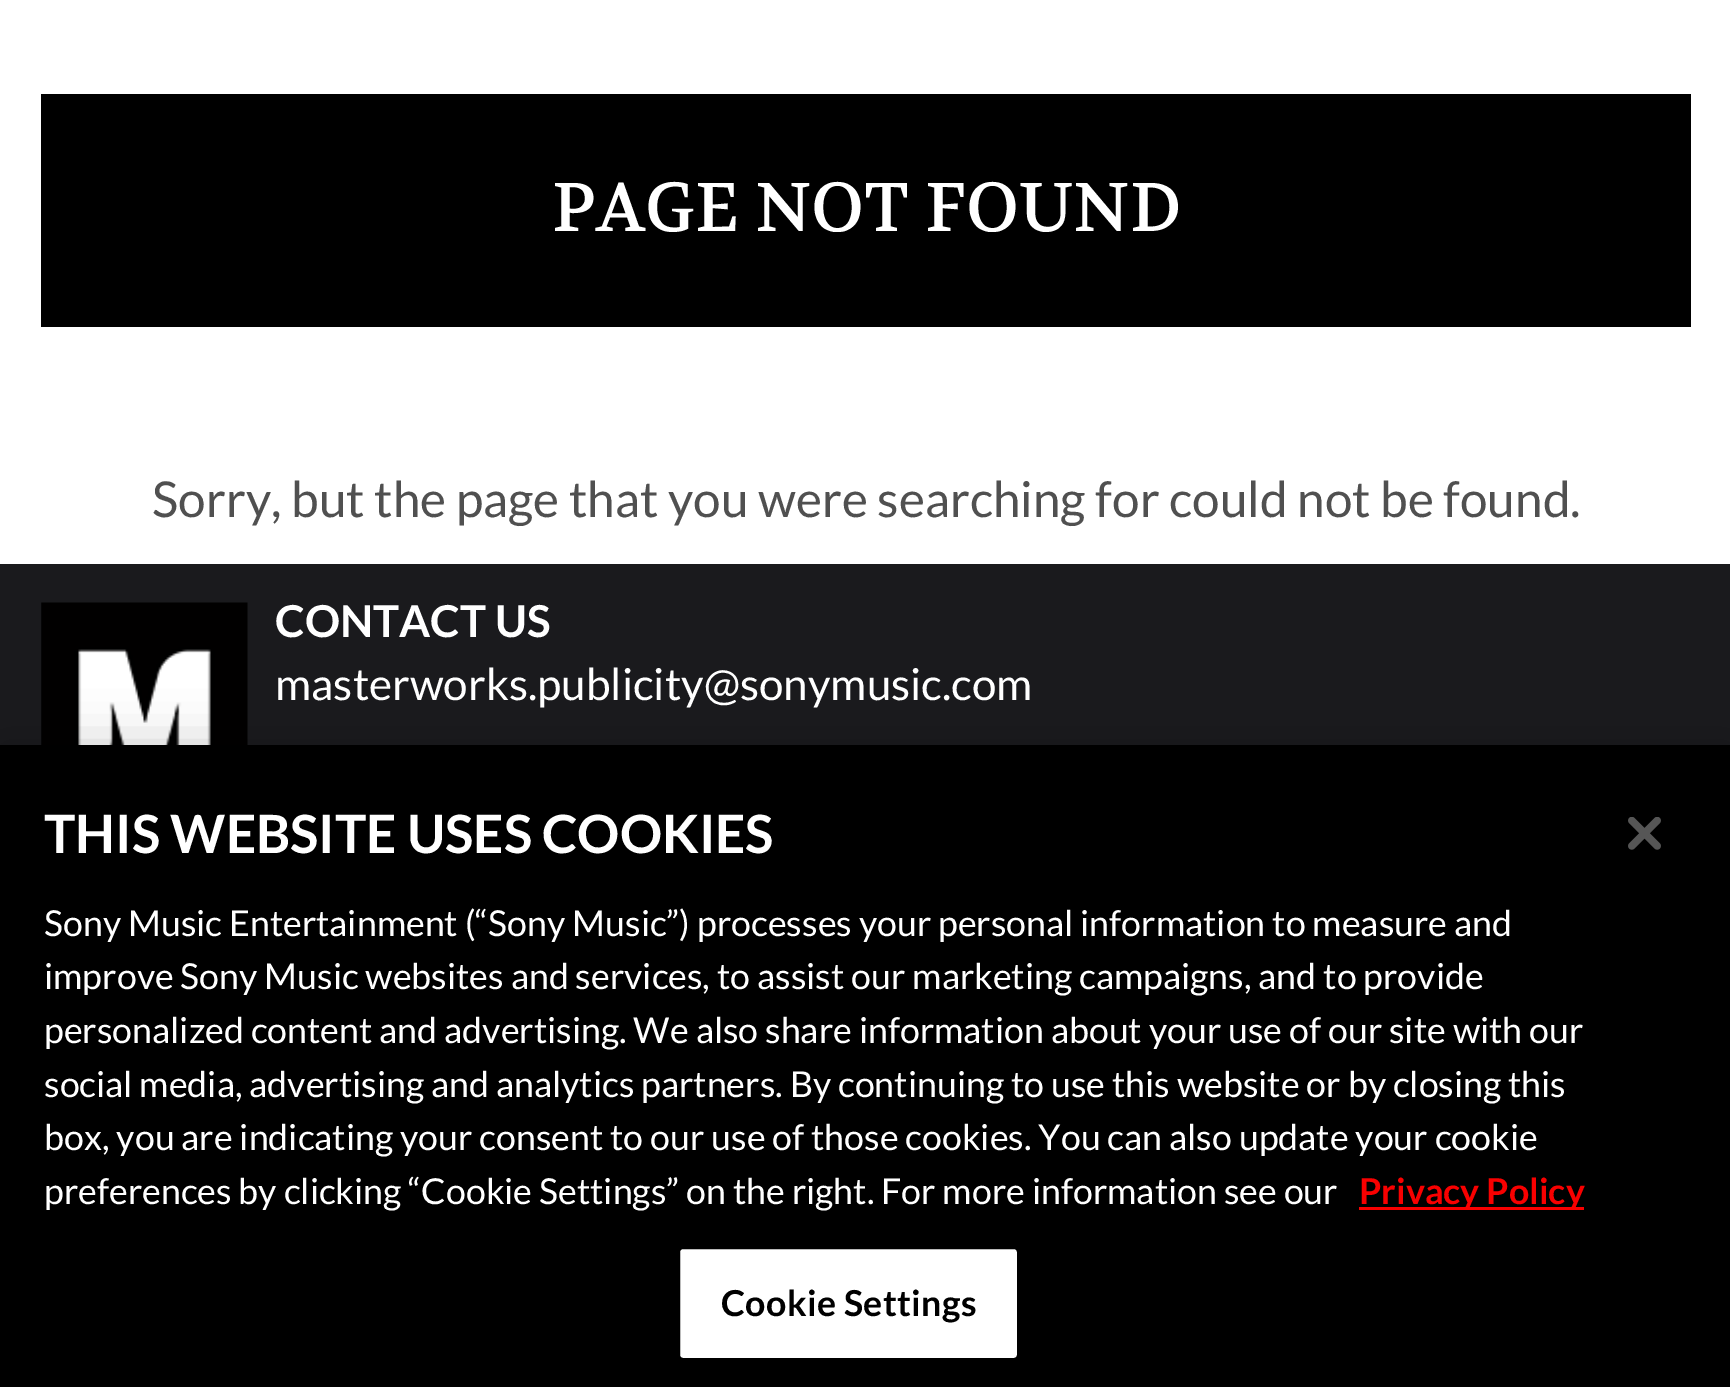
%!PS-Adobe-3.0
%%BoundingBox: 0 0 1730 1387
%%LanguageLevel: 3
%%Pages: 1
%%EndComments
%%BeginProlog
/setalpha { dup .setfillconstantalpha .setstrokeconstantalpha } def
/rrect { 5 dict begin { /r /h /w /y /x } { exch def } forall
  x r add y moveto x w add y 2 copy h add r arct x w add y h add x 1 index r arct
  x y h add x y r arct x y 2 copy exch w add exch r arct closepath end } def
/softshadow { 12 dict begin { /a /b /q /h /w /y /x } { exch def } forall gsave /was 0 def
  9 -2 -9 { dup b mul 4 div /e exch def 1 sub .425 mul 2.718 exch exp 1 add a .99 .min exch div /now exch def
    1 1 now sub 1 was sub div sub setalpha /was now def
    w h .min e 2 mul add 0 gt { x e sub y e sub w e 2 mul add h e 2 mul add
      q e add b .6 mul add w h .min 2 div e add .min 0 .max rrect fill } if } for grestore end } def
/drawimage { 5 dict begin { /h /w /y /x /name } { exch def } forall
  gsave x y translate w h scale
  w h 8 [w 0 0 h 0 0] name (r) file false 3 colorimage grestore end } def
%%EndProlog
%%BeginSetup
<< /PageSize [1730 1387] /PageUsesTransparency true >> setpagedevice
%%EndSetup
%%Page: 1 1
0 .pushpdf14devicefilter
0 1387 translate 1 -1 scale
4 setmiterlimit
1 setgray
0 0 1730 1387 rectfill
0 setgray
41 94 1650 233 rectfill
0.102 0.102 0.114 setrgbcolor
0 564 1730 181 rectfill
(images/1.raw) 41 602 207 143 drawimage
0 setgray
0 745 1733 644 0 25 0.2 softshadow
0 745 1730 642 rectfill
0.976 0 0 setrgbcolor
1359 1207 225 3 rectfill
1 setgray
678.5 1247.5 340 112 4.5 rrect gsave fill grestore
0 setgray
3 setlinewidth
stroke
(images/2.raw) 1628 817 33 33 drawimage
/Volkhov-Regular [68.75 0 0 -68.75 0 0] selectfont
1 setgray
552 231 moveto (PAGE NOT FOUND) show
/Lato-Regular [49.5 0 0 -49.5 0 0] selectfont
0.314 setgray
152 517 moveto (Sorry, but the page that you were searching for could not be found.) show
/Lato-Bold [44 0 0 -44 0 0] selectfont
1 setgray
275 637 moveto (CONTACT US) show
/Lato-Regular [44 0 0 -44 0 0] selectfont
275 700 moveto (masterworks.publicity@sonymusic.com) show
/Lato-Bold [52.75 0 0 -52.75 0 0] selectfont
44 853 moveto (THIS WEBSITE USES COOKIES) show
/Lato-Regular [35.75 0 0 -35.75 0 0] selectfont
44 936 moveto (Sony Music Entertainment \(“Sony Music”\) processes your personal information to measure and) show
44 989 moveto (improve Sony Music websites and services, to assist our marketing campaigns, and to provide) show
44 1043 moveto (personalized content and advertising. We also share information about your use of our site with our) show
44 1097 moveto (social media, advertising and analytics partners. By continuing to use this website or by closing this) show
44 1150 moveto (box, you are indicating your consent to our use of those cookies. You can also update your cookie) show
44 1204 moveto (preferences by clicking “Cookie Settings” on the right. For more information see our) show
/Lato-Bold [35.75 0 0 -35.75 0 0] selectfont
0.976 0 0 setrgbcolor
1359 1204 moveto (Privacy Policy) show
0 setgray
721 1316 moveto 0.4 0 (Cookie Settings) ashow
.poppdf14devicefilter showpage
%%EOF
